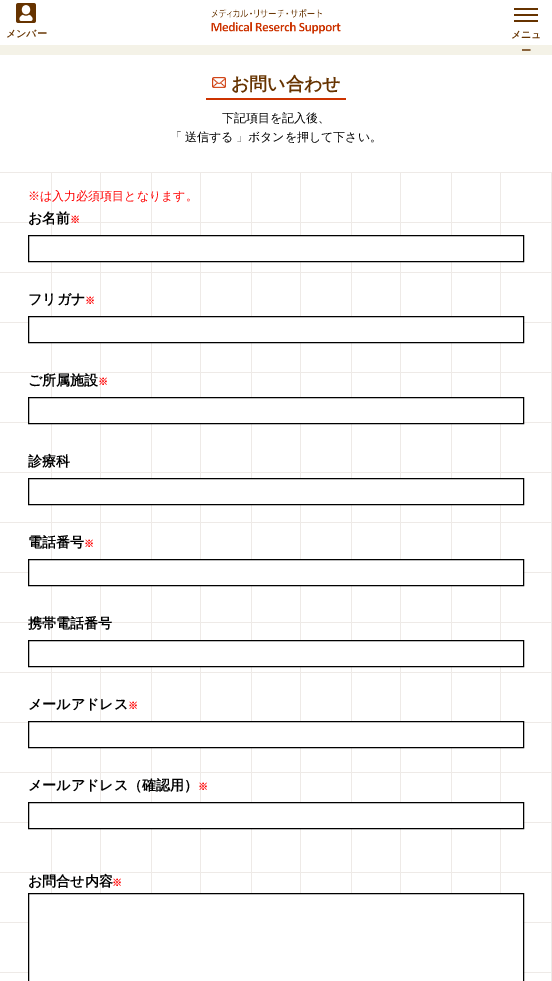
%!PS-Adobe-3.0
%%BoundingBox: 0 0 552 981
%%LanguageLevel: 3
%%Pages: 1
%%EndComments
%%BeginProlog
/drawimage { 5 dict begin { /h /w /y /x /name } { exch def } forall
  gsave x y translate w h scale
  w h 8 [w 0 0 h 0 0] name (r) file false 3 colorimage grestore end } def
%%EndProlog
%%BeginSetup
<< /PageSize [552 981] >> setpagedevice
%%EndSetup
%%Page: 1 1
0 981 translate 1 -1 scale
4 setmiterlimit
1 setgray
0 0 552 981 rectfill
(images/1.raw) 16 3 20 20 drawimage
(images/2.raw) 211 9 130 25 drawimage
0.4 0.2 0 setrgbcolor
514 8 24 2 rectfill
514 14 24 2 rectfill
514 20 24 2 rectfill
0.957 0.949 0.906 setrgbcolor
0 45 552 10 rectfill
(images/3.raw) 212 77 14 11 drawimage
0.8 0.2 0 setrgbcolor
206 98 140 2 rectfill
(images/4.raw) 0 172 552 809 drawimage
1 setgray
51 236 450 25 rectfill
0 setgray
28.5 235.5 495 26 rectstroke
1 setgray
newpath 28.5 316.5 moveto 523.5 316.5 lineto 523.5 342.5 lineto 28.5 342.5 lineto closepath gsave fill grestore
0 setgray
stroke
1 setgray
newpath 28.5 397.5 moveto 523.5 397.5 lineto 523.5 423.5 lineto 28.5 423.5 lineto closepath gsave fill grestore
0 setgray
stroke
1 setgray
51 479 450 25 rectfill
0 setgray
28.5 478.5 495 26 rectstroke
1 setgray
newpath 28.5 559.5 moveto 523.5 559.5 lineto 523.5 585.5 lineto 28.5 585.5 lineto closepath gsave fill grestore
0 setgray
stroke
1 setgray
51 641 450 25 rectfill
0 setgray
28.5 640.5 495 26 rectstroke
1 setgray
newpath 28.5 721.5 moveto 523.5 721.5 lineto 523.5 747.5 lineto 28.5 747.5 lineto closepath gsave fill grestore
0 setgray
stroke
1 setgray
newpath 28.5 802.5 moveto 523.5 802.5 lineto 523.5 828.5 lineto 28.5 828.5 lineto closepath gsave fill grestore
0 setgray
stroke
1 setgray
newpath 28.5 893.5 moveto 523.5 893.5 lineto 523.5 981.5 lineto 28.5 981.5 lineto closepath gsave fill grestore
0 setgray
stroke
/WenQuanYiZenHei-Bold [10 0 0 -10 0 0] selectfont
0.4 0.2 0 setrgbcolor
6 37 moveto (メンバー) show
511 38 moveto (メニュ) show
521 54 moveto (ー) show
/WenQuanYiZenHei-Bold [18 0 0 -18 0 0] selectfont
231 90 moveto (お問い合わせ) show
/WenQuanYiZenHei-Medium [12 0 0 -12 0 0] selectfont
0 setgray
222 122 moveto (下記項目を記入後、) show
170 141 moveto -1 0 32 (「 送信する 」ボタンを押して下さい。) widthshow
1 0 0 setrgbcolor
28 200 moveto (※は入力必須項目となります。) show
/WenQuanYiZenHei-Bold [14 0 0 -14 0 0] selectfont
0 setgray
28 223 moveto (お名前) show
/WenQuanYiZenHei-Bold [10 0 0 -10 0 0] selectfont
1 0 0 setrgbcolor
70 223 moveto (※) show
/WenQuanYiZenHei-Bold [14 0 0 -14 0 0] selectfont
0 setgray
28 304 moveto (フリガナ) show
/WenQuanYiZenHei-Bold [10 0 0 -10 0 0] selectfont
1 0 0 setrgbcolor
85 304 moveto (※) show
/WenQuanYiZenHei-Bold [14 0 0 -14 0 0] selectfont
0 setgray
28 385 moveto (ご所属施設) show
/WenQuanYiZenHei-Bold [10 0 0 -10 0 0] selectfont
1 0 0 setrgbcolor
98 385 moveto (※) show
/WenQuanYiZenHei-Bold [14 0 0 -14 0 0] selectfont
0 setgray
28 466 moveto (診療科) show
28 547 moveto (電話番号) show
/WenQuanYiZenHei-Bold [10 0 0 -10 0 0] selectfont
1 0 0 setrgbcolor
84 547 moveto (※) show
/WenQuanYiZenHei-Bold [14 0 0 -14 0 0] selectfont
0 setgray
28 628 moveto (携帯電話番号) show
28 709 moveto (メールアドレス) show
/WenQuanYiZenHei-Bold [10 0 0 -10 0 0] selectfont
1 0 0 setrgbcolor
128 709 moveto (※) show
/WenQuanYiZenHei-Bold [14 0 0 -14 0 0] selectfont
0 setgray
28 790 moveto (メールアドレス（確認用）) show
/WenQuanYiZenHei-Bold [10 0 0 -10 0 0] selectfont
1 0 0 setrgbcolor
198 790 moveto (※) show
/WenQuanYiZenHei-Bold [14 0 0 -14 0 0] selectfont
0 setgray
28 886 moveto (お問合せ内容) show
/WenQuanYiZenHei-Bold [10 0 0 -10 0 0] selectfont
1 0 0 setrgbcolor
112 886 moveto (※) show
showpage
%%EOF
